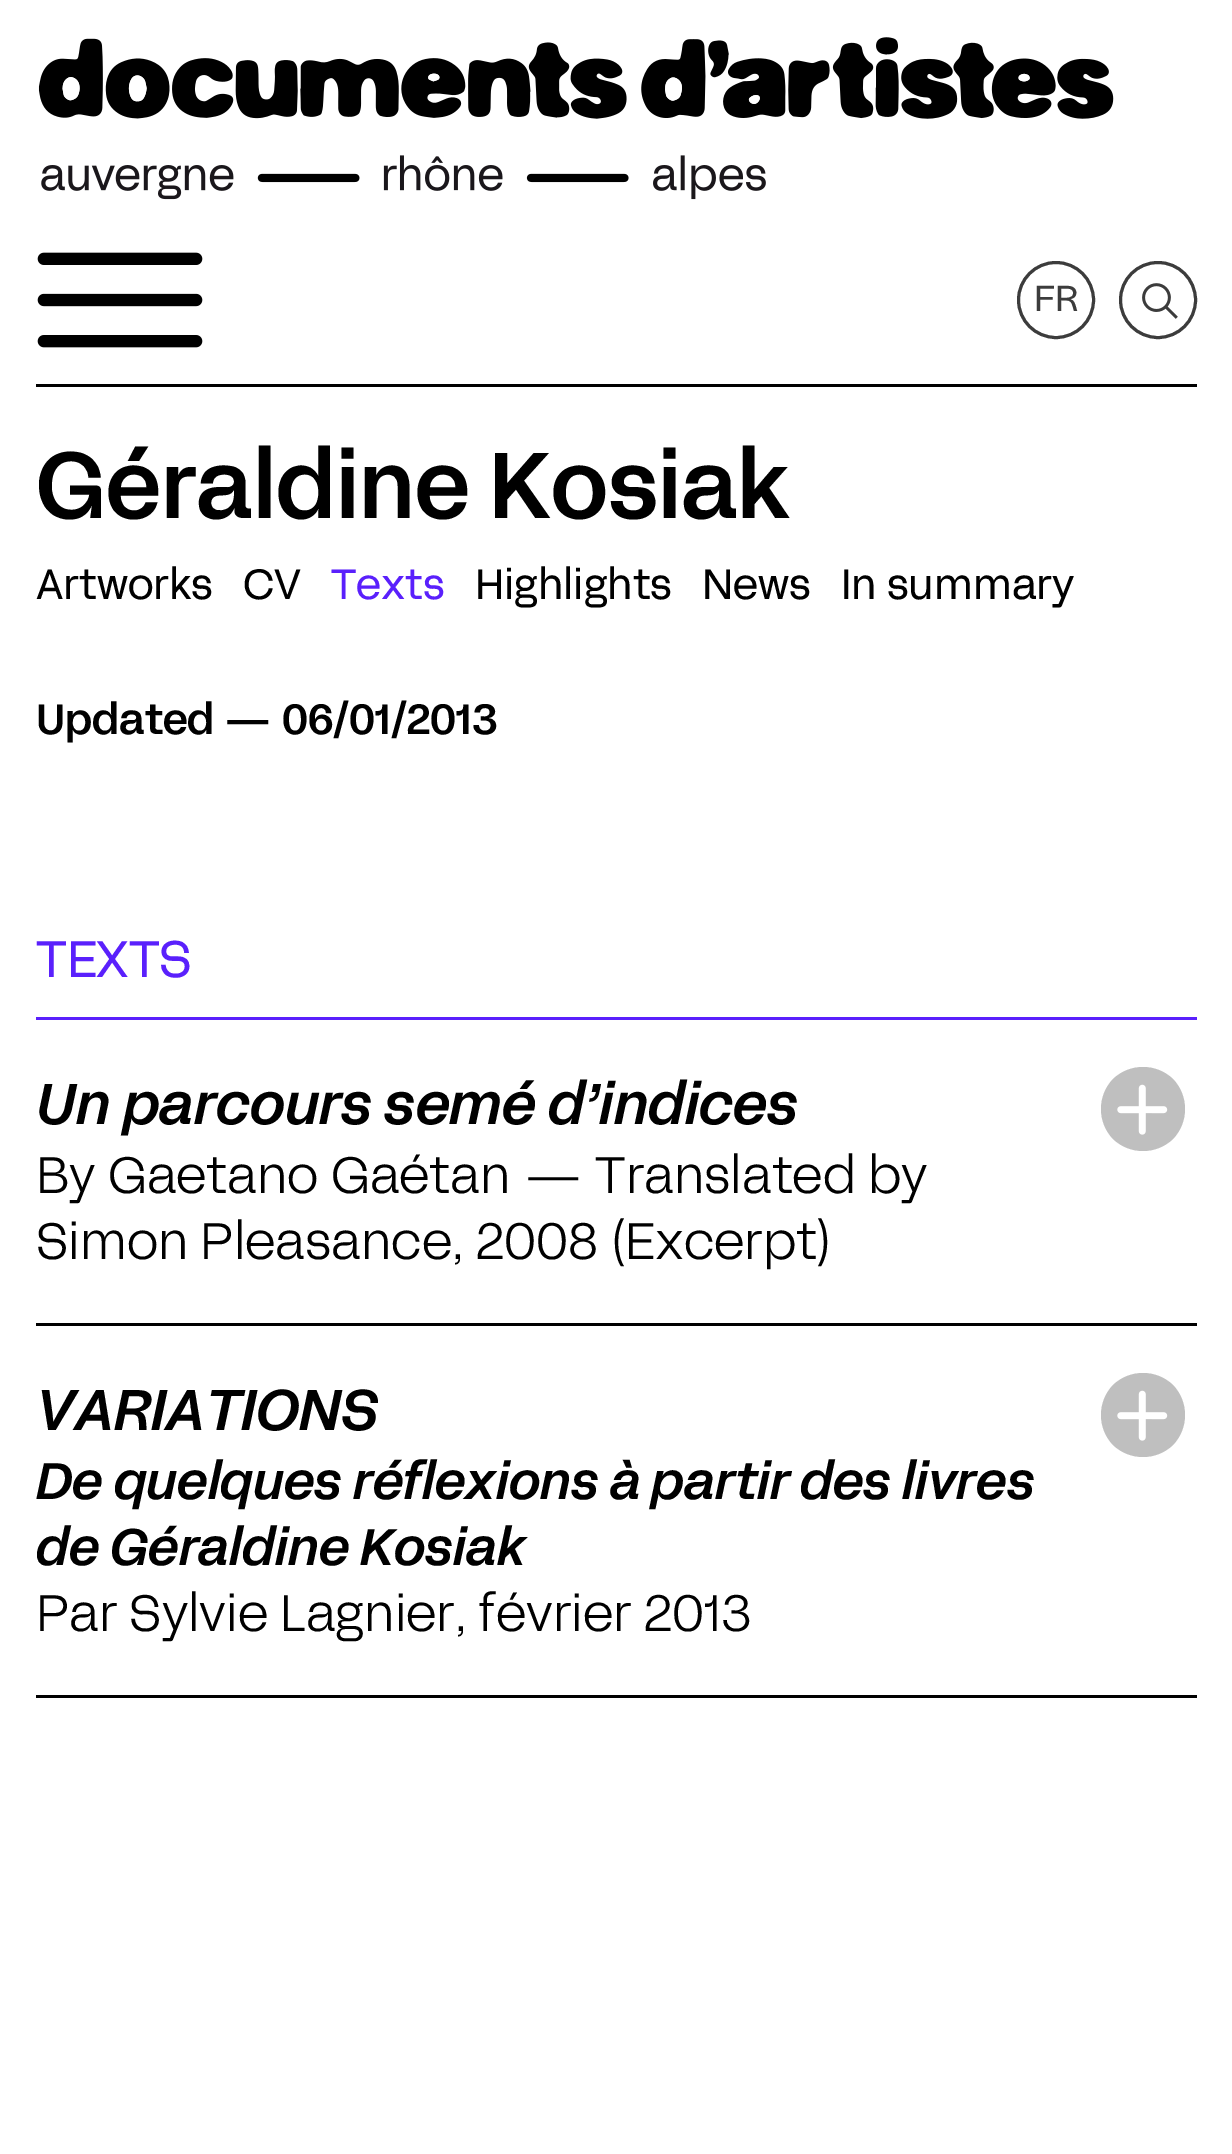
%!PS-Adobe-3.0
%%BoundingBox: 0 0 1232 2154
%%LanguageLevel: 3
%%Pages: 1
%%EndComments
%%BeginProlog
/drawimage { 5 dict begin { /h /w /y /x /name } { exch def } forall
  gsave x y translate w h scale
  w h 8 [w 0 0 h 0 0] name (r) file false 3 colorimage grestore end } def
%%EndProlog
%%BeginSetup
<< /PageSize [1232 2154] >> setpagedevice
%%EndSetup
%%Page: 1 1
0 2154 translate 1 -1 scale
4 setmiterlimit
1 setgray
0 0 1232 2154 rectfill
(images/1.raw) 38 37 1076 163 drawimage
0 setgray
36 384 1161 3 rectfill
(images/2.raw) 37 252 166 96 drawimage
0.235 setgray
3 setlinewidth
newpath 1056 300 37.5 0 360 arc closepath stroke
newpath 1158 300 37.5 0 360 arc closepath stroke
(images/3.raw) 1142 283 36 36 drawimage
0.353 0.125 0.988 setrgbcolor
36 1017 1161 3 rectfill
0 setgray
36 1323 1161 3 rectfill
0.749 setgray
newpath 1173 1079 moveto 1189 1096 1189 1122 1173 1139 curveto 1156 1155 1130 1155 1113 1139 curveto 1097 1122 1097 1096 1113 1079 curveto 1130 1063 1156 1063 1173 1079 curveto closepath fill
(images/4.raw) 1117 1084 51 51 drawimage
0 setgray
36 1695 1161 3 rectfill
0.749 setgray
newpath 1173 1385 moveto 1189 1402 1189 1428 1173 1445 curveto 1156 1461 1130 1461 1113 1445 curveto 1097 1428 1097 1402 1113 1385 curveto 1130 1369 1156 1369 1173 1385 curveto closepath fill
(images/4.raw) 1117 1390 51 51 drawimage
/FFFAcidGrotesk-Regular [36 0 0 -36 0 0] selectfont
0.235 setgray
1034 311 moveto (FR) show
/FFFAcidGrotesk-Medium [93 0 0 -93 0 0] selectfont
0 setgray
36 518 moveto (Géraldine Kosiak) show
/FFFAcidGrotesk-Medium [42 0 0 -42 0 0] selectfont
36 734 moveto (Updated — 06/01/2013) show
/FFFAcidGrotesk-Regular [51 0 0 -51 0 0] selectfont
0.353 0.125 0.988 setrgbcolor
36 977 moveto (TEXTS) show
/FFFAcidGrotesk-MediumItalic [57 0 0 -57 0 0] selectfont
0 setgray
36 1124 moveto (Un parcours semé d’indices) show
/FFFAcidGrotesk-Light [51 0 0 -51 0 0] selectfont
36 1193 moveto (By Gaetano Gaétan — Translated by) show
36 1259 moveto (Simon Pleasance, 2008 \(Excerpt\)) show
/FFFAcidGrotesk-MediumItalic [57 0 0 -57 0 0] selectfont
36 1430 moveto (VARIATIONS) show
/FFFAcidGrotesk-MediumItalic [51 0 0 -51 0 0] selectfont
36 1499 moveto (De quelques réflexions à partir des livres) show
36 1565 moveto (de Géraldine Kosiak) show
/FFFAcidGrotesk-Light [51 0 0 -51 0 0] selectfont
36 1631 moveto (Par Sylvie Lagnier, février 2013) show
/FFFAcidGrotesk-Regular [42 0 0 -42 0 0] selectfont
36 599 moveto (Artworks) show
243 599 moveto (CV) show
0.353 0.125 0.988 setrgbcolor
331 599 moveto (Texts) show
0 setgray
475 599 moveto (Highlights) show
702 599 moveto (News) show
841 599 moveto (In summary) show
showpage
%%EOF
